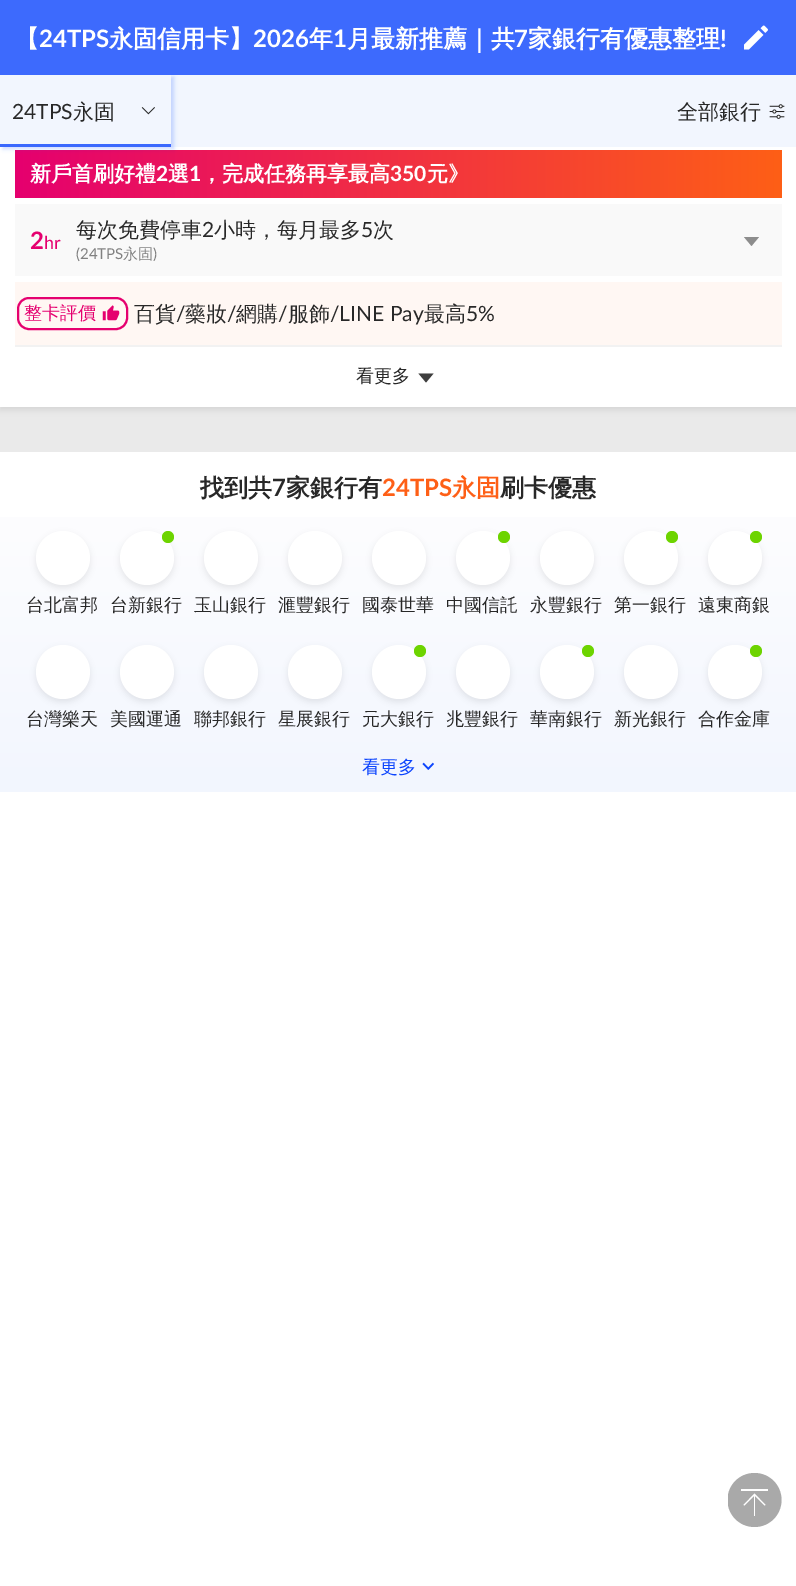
%!PS-Adobe-3.0
%%BoundingBox: 0 0 796 1586
%%LanguageLevel: 3
%%Pages: 1
%%EndComments
%%BeginProlog
/setalpha { dup .setfillconstantalpha .setstrokeconstantalpha } def
/rrect { 5 dict begin { /r /h /w /y /x } { exch def } forall
  x r add y moveto x w add y 2 copy h add r arct x w add y h add x 1 index r arct
  x y h add x y r arct x y 2 copy exch w add exch r arct closepath end } def
/softshadow { 12 dict begin { /a /b /q /h /w /y /x } { exch def } forall gsave /was 0 def
  9 -2 -9 { dup b mul 4 div /e exch def 1 sub .425 mul 2.718 exch exp 1 add a .99 .min exch div /now exch def
    1 1 now sub 1 was sub div sub setalpha /was now def
    w h .min e 2 mul add 0 gt { x e sub y e sub w e 2 mul add h e 2 mul add
      q e add b .6 mul add w h .min 2 div e add .min 0 .max rrect fill } if } for grestore end } def
/drawimage { 5 dict begin { /h /w /y /x /name } { exch def } forall
  gsave x y translate w h scale
  w h 8 [w 0 0 h 0 0] name (r) file false 3 colorimage grestore end } def
%%EndProlog
%%BeginSetup
<< /PageSize [796 1586] /PageUsesTransparency true >> setpagedevice
%%EndSetup
%%Page: 1 1
0 .pushpdf14devicefilter
0 1586 translate 1 -1 scale
4 setmiterlimit
1 setgray
0 0 796 1586 rectfill
0.918 setgray
0 407 796 45 rectfill
0.157 setgray
0 66 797 344 0 3 0.1 softshadow
0.239 0.416 0.992 setrgbcolor
0 0 796 75 rectfill
(images/1.raw) 744 25 24 25 drawimage
0.949 0.965 0.996 setrgbcolor
0 75 796 72 rectfill
1 setgray
0 147 796 260 rectfill
gsave newpath 15 150 moveto 782 150 lineto 782 198 lineto 15 198 lineto closepath clip newpath
<< /ShadingType 2 /ColorSpace /DeviceRGB /Coords [15 174 782 174] /Extend [true true] /Function << /FunctionType 2 /Domain [0 1] /C0 [0.898 0 0.435] /C1 [0.996 0.373 0.086] /N 1 >> >> shfill grestore
gsave
newpath 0 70 moveto 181 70 lineto 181 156 lineto 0 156 lineto closepath 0 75 moveto 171 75 lineto 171 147 lineto 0 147 lineto closepath eoclip newpath
0.051 0.271 0.992 setrgbcolor
3 77 171 72 0 2 0.2 softshadow
grestore
0.231 0.408 0.992 setrgbcolor
0 144 171 3 rectfill
(images/2.raw) 141 107 14 8 drawimage
(images/3.raw) 769 104 16 15 drawimage
0.976 setgray
15 204 767 72 rectfill
0.553 setgray
newpath 759 237 moveto 751.5 246 lineto 744 237 lineto 751.5 237 lineto closepath eofill
1 0.969 0.953 setrgbcolor
15 282 767 63 rectfill
0.898 0 0.435 setrgbcolor
2 setlinewidth
18 298 109 31 11 rrect stroke
(images/4.raw) 102 305 18 16 drawimage
0.949 setgray
15 345 767 2 rectfill
0.243 setgray
newpath 433.5 373.5 moveto 426 382.5 lineto 418.5 373.5 lineto 426 373.5 lineto closepath eofill
gsave newpath 0 517 moveto 796 517 lineto 796 792 lineto 0 792 lineto closepath clip newpath
<< /ShadingType 2 /ColorSpace /DeviceRGB /Coords [398 452 398 792] /Extend [true true] /Function << /FunctionType 2 /Domain [0 1] /C0 [1 1 1] /C1 [0.949 0.965 0.996] /N 1 >> >> shfill grestore
0.157 setgray
36 534 54 54 27 3 0.1 softshadow
1 setgray
newpath 63 558 27 0 360 arc closepath fill
0.157 setgray
120 534 54 54 27 3 0.1 softshadow
1 setgray
newpath 147 558 27 0 360 arc closepath fill
0.427 0.831 0 setrgbcolor
newpath 168 537 6 0 360 arc closepath fill
0.157 setgray
204 534 54 54 27 3 0.1 softshadow
1 setgray
newpath 231 558 27 0 360 arc closepath fill
0.157 setgray
288 534 54 54 27 3 0.1 softshadow
1 setgray
newpath 315 558 27 0 360 arc closepath fill
0.157 setgray
372 534 54 54 27 3 0.1 softshadow
1 setgray
newpath 399 558 27 0 360 arc closepath fill
0.157 setgray
456 534 54 54 27 3 0.1 softshadow
1 setgray
newpath 483 558 27 0 360 arc closepath fill
0.427 0.831 0 setrgbcolor
newpath 504 537 6 0 360 arc closepath fill
0.157 setgray
540 534 54 54 27 3 0.1 softshadow
1 setgray
newpath 567 558 27 0 360 arc closepath fill
0.157 setgray
624 534 54 54 27 3 0.1 softshadow
1 setgray
newpath 651 558 27 0 360 arc closepath fill
0.427 0.831 0 setrgbcolor
newpath 672 537 6 0 360 arc closepath fill
0.157 setgray
708 534 54 54 27 3 0.1 softshadow
1 setgray
newpath 735 558 27 0 360 arc closepath fill
0.427 0.831 0 setrgbcolor
newpath 756 537 6 0 360 arc closepath fill
0.157 setgray
36 648 54 54 27 3 0.1 softshadow
1 setgray
newpath 63 672 27 0 360 arc closepath fill
0.157 setgray
120 648 54 54 27 3 0.1 softshadow
1 setgray
newpath 147 672 27 0 360 arc closepath fill
0.157 setgray
204 648 54 54 27 3 0.1 softshadow
1 setgray
newpath 231 672 27 0 360 arc closepath fill
0.157 setgray
288 648 54 54 27 3 0.1 softshadow
1 setgray
newpath 315 672 27 0 360 arc closepath fill
0.157 setgray
372 648 54 54 27 3 0.1 softshadow
1 setgray
newpath 399 672 27 0 360 arc closepath fill
0.427 0.831 0 setrgbcolor
newpath 420 651 6 0 360 arc closepath fill
0.157 setgray
456 648 54 54 27 3 0.1 softshadow
1 setgray
newpath 483 672 27 0 360 arc closepath fill
0.157 setgray
540 648 54 54 27 3 0.1 softshadow
1 setgray
newpath 567 672 27 0 360 arc closepath fill
0.427 0.831 0 setrgbcolor
newpath 588 651 6 0 360 arc closepath fill
0.157 setgray
624 648 54 54 27 3 0.1 softshadow
1 setgray
newpath 651 672 27 0 360 arc closepath fill
0.157 setgray
708 648 54 54 27 3 0.1 softshadow
1 setgray
newpath 735 672 27 0 360 arc closepath fill
0.427 0.831 0 setrgbcolor
newpath 756 651 6 0 360 arc closepath fill
(images/5.raw) 422 762 12 8 drawimage
gsave
728 1473 54 54 rectclip
0.663 setgray
newpath 754.5 1500 27 0 360 arc closepath fill
grestore
1 setgray
741 1489 27 2 rectfill
newpath 765.5 1505 moveto 764.5 1505.5 lineto 755 1496 lineto 755 1516 lineto 754 1516 lineto 754 1496 lineto 744.5 1505.5 lineto 743.5 1505 lineto 754.5 1493.5 lineto closepath fill
/WenQuanYiZenHei-Bold [24 0 0 -24 0 0] selectfont
15 47 moveto (【) show
/Lato-Bold [24 0 0 -24 0 0] selectfont
39 47 moveto (24TPS) show
/WenQuanYiZenHei-Bold [24 0 0 -24 0 0] selectfont
109 47 moveto (永固信用卡】) show
/Lato-Bold [24 0 0 -24 0 0] selectfont
253 47 moveto (2026) show
/WenQuanYiZenHei-Bold [24 0 0 -24 0 0] selectfont
309 47 moveto (年) show
/Lato-Bold [24 0 0 -24 0 0] selectfont
333 47 moveto (1) show
/WenQuanYiZenHei-Bold [24 0 0 -24 0 0] selectfont
347 47 moveto (月最新推薦｜共) show
/Lato-Bold [24 0 0 -24 0 0] selectfont
514 47 moveto (7) show
/WenQuanYiZenHei-Bold [24 0 0 -24 0 0] selectfont
528 47 moveto (家銀行有優惠整理) show
/Lato-Bold [24 0 0 -24 0 0] selectfont
720 47 moveto (!) show
/Lato-Regular [21 0 0 -21 0 0] selectfont
0.157 setgray
12 119 moveto (24TPS) show
/WenQuanYiZenHei-Medium [21 0 0 -21 0 0] selectfont
73 119 moveto (永固) show
677 119 moveto (全部銀行) show
/WenQuanYiZenHei-Bold [21 0 0 -21 0 0] selectfont
1 setgray
30 181 moveto (新戶首刷好禮) show
/Lato-Bold [21 0 0 -21 0 0] selectfont
156 181 moveto (2) show
/WenQuanYiZenHei-Bold [21 0 0 -21 0 0] selectfont
168 181 moveto (選) show
/Lato-Bold [21 0 0 -21 0 0] selectfont
189 181 moveto (1) show
/WenQuanYiZenHei-Bold [21 0 0 -21 0 0] selectfont
201 181 moveto (，完成任務再享最高) show
/Lato-Bold [21 0 0 -21 0 0] selectfont
390 181 moveto (350) show
/WenQuanYiZenHei-Bold [21 0 0 -21 0 0] selectfont
427 181 moveto (元》) show
/Lato-Bold [24 0 0 -24 0 0] selectfont
0.898 0 0.435 setrgbcolor
30 249 moveto (2) show
/Lato-Regular [18 0 0 -18 0 0] selectfont
44 249 moveto (hr) show
/WenQuanYiZenHei-Medium [21 0 0 -21 0 0] selectfont
0.157 setgray
76 237 moveto (每次免費停車) show
/Lato-Regular [21 0 0 -21 0 0] selectfont
202 237 moveto (2) show
/WenQuanYiZenHei-Medium [21 0 0 -21 0 0] selectfont
214 237 moveto (小時，每月最多) show
/Lato-Regular [21 0 0 -21 0 0] selectfont
361 237 moveto (5) show
/WenQuanYiZenHei-Medium [21 0 0 -21 0 0] selectfont
373 237 moveto (次) show
/Lato-Regular [15 0 0 -15 0 0] selectfont
0.506 setgray
76 259 moveto (\(24TPS) show
/WenQuanYiZenHei-Medium [15 0 0 -15 0 0] selectfont
123 259 moveto (永固) show
/Lato-Regular [15 0 0 -15 0 0] selectfont
153 259 moveto (\)) show
/WenQuanYiZenHei-Medium [18 0 0 -18 0 0] selectfont
0.898 0 0.435 setrgbcolor
24 319 moveto (整卡評價) show
/WenQuanYiZenHei-Medium [21 0 0 -21 0 0] selectfont
0.157 setgray
134 321 moveto (百貨) show
/Lato-Regular [21 0 0 -21 0 0] selectfont
176 321 moveto (/) show
/WenQuanYiZenHei-Medium [21 0 0 -21 0 0] selectfont
185 321 moveto (藥妝) show
/Lato-Regular [21 0 0 -21 0 0] selectfont
227 321 moveto (/) show
/WenQuanYiZenHei-Medium [21 0 0 -21 0 0] selectfont
236 321 moveto (網購) show
/Lato-Regular [21 0 0 -21 0 0] selectfont
278 321 moveto (/) show
/WenQuanYiZenHei-Medium [21 0 0 -21 0 0] selectfont
288 321 moveto (服飾) show
/Lato-Regular [21 0 0 -21 0 0] selectfont
330 321 moveto (/LINE Pay) show
/WenQuanYiZenHei-Medium [21 0 0 -21 0 0] selectfont
424 321 moveto (最高) show
/Lato-Regular [21 0 0 -21 0 0] selectfont
466 321 moveto (5%) show
/WenQuanYiZenHei-Medium [18 0 0 -18 0 0] selectfont
356 382 moveto (看更多) show
/WenQuanYiZenHei-Bold [24 0 0 -24 0 0] selectfont
200 496 moveto (找到共) show
/Lato-Bold [24 0 0 -24 0 0] selectfont
272 496 moveto (7) show
/WenQuanYiZenHei-Bold [24 0 0 -24 0 0] selectfont
286 496 moveto (家銀行有) show
/Lato-Bold [24 0 0 -24 0 0] selectfont
0.996 0.373 0.086 setrgbcolor
382 496 moveto (24TPS) show
/WenQuanYiZenHei-Bold [24 0 0 -24 0 0] selectfont
452 496 moveto (永固) show
0.157 setgray
500 496 moveto (刷卡優惠) show
/WenQuanYiZenHei-Medium [18 0 0 -18 0 0] selectfont
26 611 moveto (台北富邦) show
110 611 moveto (台新銀行) show
194 611 moveto (玉山銀行) show
278 611 moveto (滙豐銀行) show
362 611 moveto (國泰世華) show
446 611 moveto (中國信託) show
530 611 moveto (永豐銀行) show
614 611 moveto (第一銀行) show
698 611 moveto (遠東商銀) show
26 725 moveto (台灣樂天) show
110 725 moveto (美國運通) show
194 725 moveto (聯邦銀行) show
278 725 moveto (星展銀行) show
362 725 moveto (元大銀行) show
446 725 moveto (兆豐銀行) show
530 725 moveto (華南銀行) show
614 725 moveto (新光銀行) show
698 725 moveto (合作金庫) show
0.051 0.271 0.992 setrgbcolor
362 773 moveto (看更多) show
.poppdf14devicefilter showpage
%%EOF
